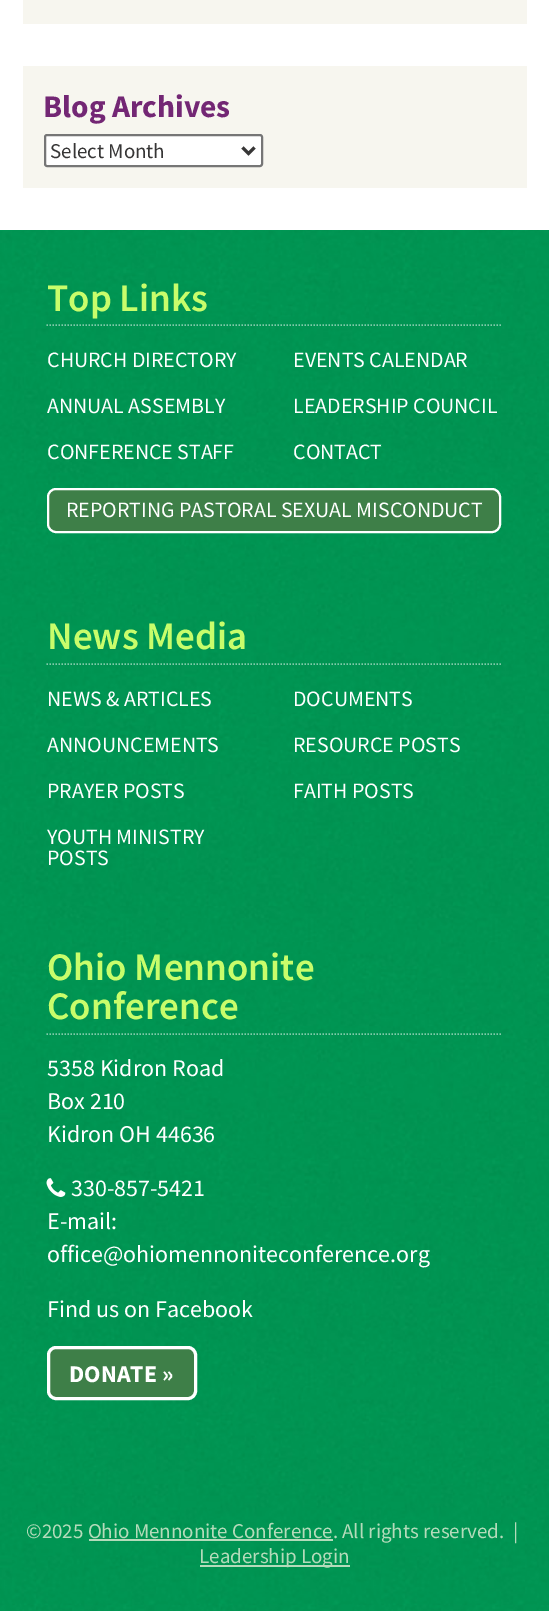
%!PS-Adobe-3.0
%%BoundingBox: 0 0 549 1611
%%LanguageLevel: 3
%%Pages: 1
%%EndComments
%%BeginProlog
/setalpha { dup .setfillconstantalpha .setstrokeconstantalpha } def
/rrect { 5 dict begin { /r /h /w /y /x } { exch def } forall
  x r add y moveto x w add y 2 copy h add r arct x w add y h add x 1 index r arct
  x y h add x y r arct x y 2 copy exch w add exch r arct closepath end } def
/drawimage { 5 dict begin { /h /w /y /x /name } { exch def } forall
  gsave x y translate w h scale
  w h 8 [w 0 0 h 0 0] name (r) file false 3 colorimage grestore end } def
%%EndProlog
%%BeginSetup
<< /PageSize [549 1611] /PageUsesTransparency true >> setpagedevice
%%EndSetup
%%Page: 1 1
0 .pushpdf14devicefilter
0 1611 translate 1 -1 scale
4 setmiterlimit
1 setgray
0 0 549 1611 rectfill
(images/1.raw) 0 230 549 1381 drawimage
0.969 0.965 0.937 setrgbcolor
23 0 504 24 rectfill
23 66 504 122 rectfill
1 setgray
45 135 217 31 2 rrect gsave fill grestore
0.463 setgray
2 setlinewidth
stroke
0.216 0.212 0.212 setrgbcolor
3 setlinewidth
newpath 242.5 147.5 moveto 248.5 153.5 lineto 254.5 147.5 lineto stroke
0.5 setalpha
1 setgray
1.5 setlinewidth
[1.5 1.5] 0 setdash
newpath 46.5 325 moveto 502.5 325 lineto stroke
1 setalpha
0.243 0.498 0.282 setrgbcolor
48 489 452 43 8 rrect gsave fill grestore
1 setgray
2 setlinewidth
[] 0 setdash
stroke
0.5 setalpha
1.5 setlinewidth
[1.5 1.5] 0 setdash
newpath 46.5 664 moveto 502.5 664 lineto stroke
newpath 46.5 1034 moveto 502.5 1034 lineto stroke
1 setalpha
(images/2.raw) 46 1178 20 19 drawimage
0.243 0.498 0.282 setrgbcolor
48.5 1347.5 147 51 7.5 rrect gsave fill grestore
1 setgray
3 setlinewidth
[] 0 setdash
stroke
0.706 0.859 0.729 setrgbcolor
89 1539 244 2 rectfill
200 1565 150 2 rectfill
/SourceSansPro-Bold [31.5 0 0 -31.5 0 0] selectfont
0.451 0.153 0.455 setrgbcolor
43 117 moveto (Blog Archives) show
/SourceSansPro-Regular [21 0 0 -21 0 0] selectfont
0.216 0.212 0.212 setrgbcolor
50 158 moveto (Select Month) show
/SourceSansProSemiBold-SemiBold [39 0 0 -39 0 0] selectfont
0.784 0.992 0.42 setrgbcolor
47 311 moveto (Top Links) show
/SourceSansPro-Regular [21.9 0 0 -21.9 0 0] selectfont
1 setgray
47 367 moveto (CHURCH DIRECTORY) show
293 367 moveto (EVENTS CALENDAR) show
47 413 moveto (ANNUAL ASSEMBLY) show
293 413 moveto (LEADERSHIP COUNCIL) show
47 459 moveto (CONFERENCE STAFF) show
293 459 moveto (CONTACT) show
66 517 moveto (REPORTING PASTORAL SEXUAL MISCONDUCT) show
/SourceSansProSemiBold-SemiBold [39 0 0 -39 0 0] selectfont
0.784 0.992 0.42 setrgbcolor
47 649 moveto (News Media) show
/SourceSansPro-Regular [21.9 0 0 -21.9 0 0] selectfont
1 setgray
47 706 moveto (NEWS & ARTICLES) show
293 706 moveto (DOCUMENTS) show
47 752 moveto (ANNOUNCEMENTS) show
293 752 moveto (RESOURCE POSTS) show
47 798 moveto (PRAYER POSTS) show
293 798 moveto (FAITH POSTS) show
47 844 moveto (YOUTH MINISTRY) show
47 865 moveto (POSTS) show
/SourceSansProSemiBold-SemiBold [39 0 0 -39 0 0] selectfont
0.784 0.992 0.42 setrgbcolor
47 980 moveto (Ohio Mennonite) show
47 1019 moveto (Conference) show
/SourceSansPro-Regular [24 0 0 -24 0 0] selectfont
1 setgray
47 1076 moveto (5358 Kidron Road) show
47 1109 moveto (Box 210) show
47 1142 moveto (Kidron OH 44636) show
71 1196 moveto (330-857-5421) show
47 1229 moveto (E-mail:) show
47 1262 moveto (office@ohiomennoniteconference.org) show
47 1317 moveto (Find us on Facebook) show
/SourceSansPro-Bold [24 0 0 -24 0 0] selectfont
69 1382 moveto (DONATE ») show
/SourceSansPro-Regular [21 0 0 -21 0 0] selectfont
0.706 0.859 0.729 setrgbcolor
26 1538 moveto (©2025 Ohio Mennonite Conference. All rights reserved.  |) show
199 1563 moveto (Leadership Login) show
.poppdf14devicefilter showpage
%%EOF
